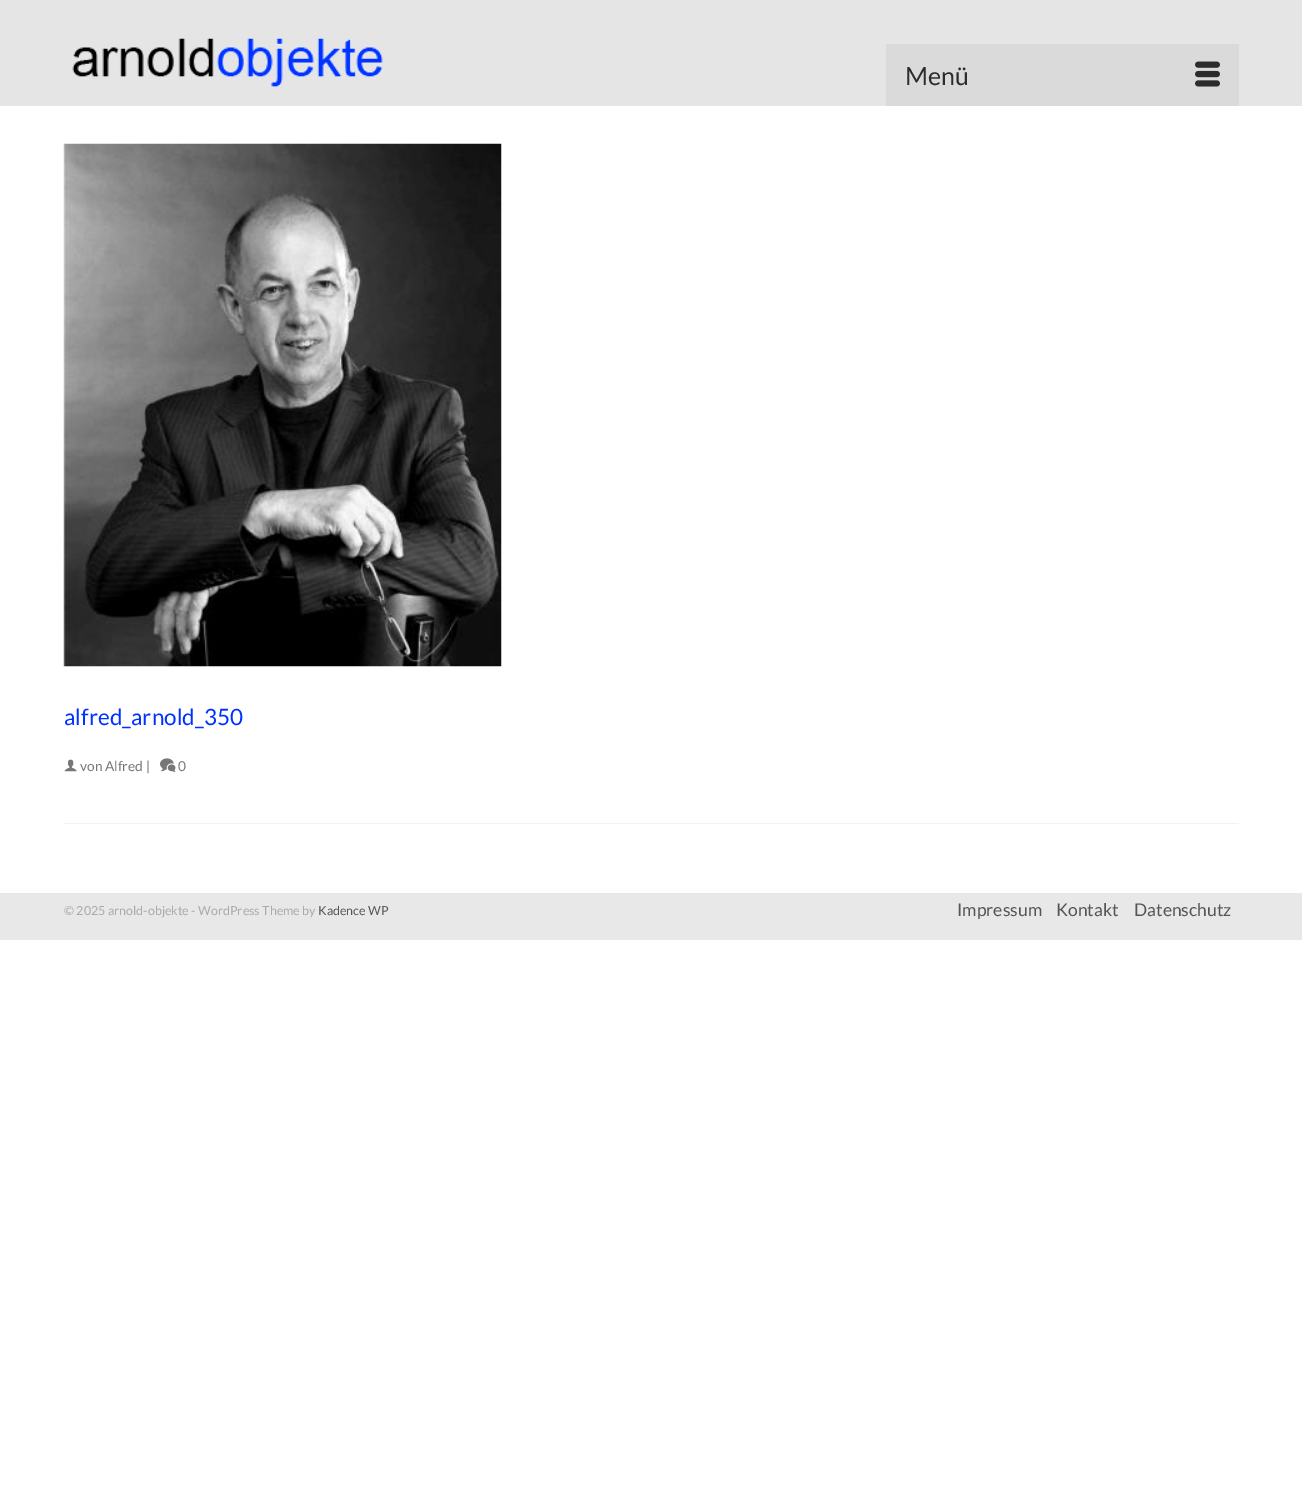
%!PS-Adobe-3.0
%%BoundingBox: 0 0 1302 1492
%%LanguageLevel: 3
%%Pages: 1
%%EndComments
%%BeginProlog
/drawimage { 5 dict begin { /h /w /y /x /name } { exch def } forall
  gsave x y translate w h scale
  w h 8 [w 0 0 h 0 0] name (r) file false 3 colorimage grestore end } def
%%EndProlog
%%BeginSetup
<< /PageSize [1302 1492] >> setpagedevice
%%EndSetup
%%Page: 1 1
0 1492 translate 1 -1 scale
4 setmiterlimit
1 setgray
0 0 1302 1492 rectfill
0.898 setgray
0 0 1302 106 rectfill
(images/1.raw) 72 38 311 49 drawimage
0.855 setgray
886 44 353 62 rectfill
(images/2.raw) 1195 61 25 26 drawimage
(images/3.raw) 63 143 439 524 drawimage
(images/4.raw) 64 759 13 13 drawimage
(images/5.raw) 160 758 16 15 drawimage
0.949 setgray
64 823 1175 1 rectfill
0.91 setgray
0 893 1302 47 rectfill
/Lato-Regular [25 0 0 -25 0 0] selectfont
0.173 setgray
905 85 moveto (Menü) show
/Lato-Regular [22.5 0 0 -22.5 0 0] selectfont
0 0.2 1 setrgbcolor
64 725 moveto (alfred_arnold_350) show
/Lato-Regular [13.75 0 0 -13.75 0 0] selectfont
0.467 setgray
80 771 moveto (von Alfred |) show
178 771 moveto (0) show
/Lato-Regular [12.5 0 0 -12.5 0 0] selectfont
0.667 setgray
64 915 moveto (© 2025 arnold-objekte - WordPress Theme by) show
0.333 setgray
318 915 moveto (Kadence WP) show
/Lato-Regular [17.5 0 0 -17.5 0 0] selectfont
957 916 moveto (Impressum) show
1056 916 moveto (Kontakt) show
1134 916 moveto (Datenschutz) show
showpage
%%EOF
